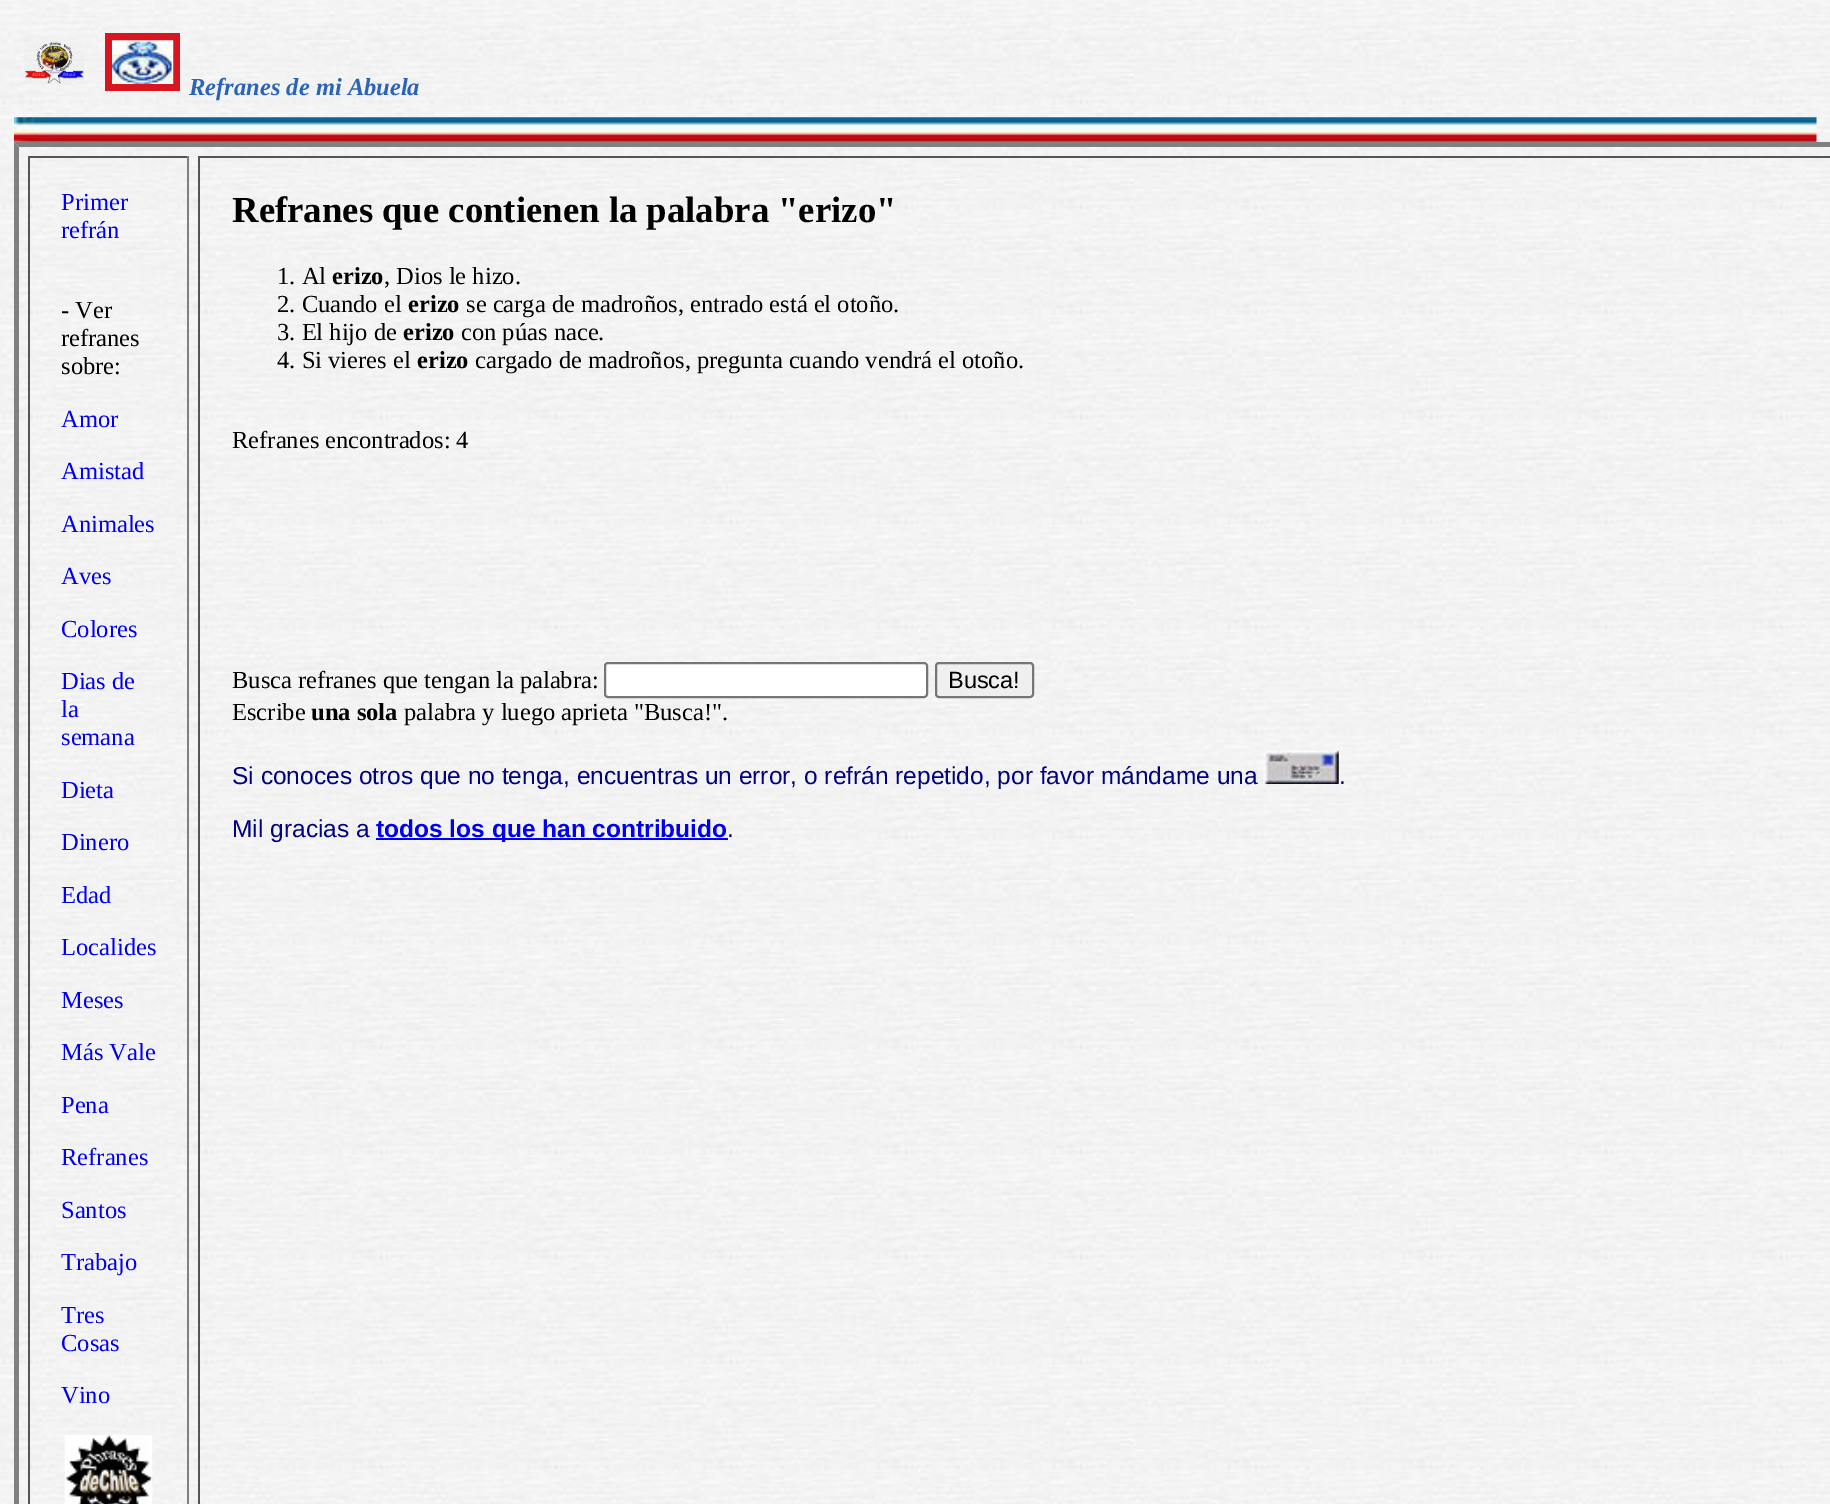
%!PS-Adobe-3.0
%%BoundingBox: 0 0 1830 1504
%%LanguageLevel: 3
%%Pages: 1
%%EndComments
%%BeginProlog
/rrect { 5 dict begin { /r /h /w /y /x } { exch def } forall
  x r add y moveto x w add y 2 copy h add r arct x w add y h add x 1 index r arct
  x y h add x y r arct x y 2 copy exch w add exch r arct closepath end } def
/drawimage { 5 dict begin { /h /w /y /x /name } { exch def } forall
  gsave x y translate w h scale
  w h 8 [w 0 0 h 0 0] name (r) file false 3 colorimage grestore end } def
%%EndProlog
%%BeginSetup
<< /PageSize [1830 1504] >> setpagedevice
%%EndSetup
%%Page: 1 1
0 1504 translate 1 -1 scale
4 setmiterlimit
1 setgray
0 0 1830 1504 rectfill
(images/1.raw) 0 0 1830 1504 drawimage
0.847 0.086 0.133 setrgbcolor
105 33 75 58 rectfill
(images/2.raw) 24 42 60 42 drawimage
(images/3.raw) 112 40 62 44 drawimage
(images/4.raw) 14 117 1803 25 drawimage
0.502 setgray
newpath 14 142 moveto 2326 142 lineto 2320 147 lineto 19 147 lineto closepath fill
newpath 14 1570 moveto 14 142 lineto 19 147 lineto 19 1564 lineto closepath fill
0.333 setgray
28 156 161 2 rectfill
0.502 setgray
187 156 2 1348 rectfill
0.333 setgray
28 156 2 1348 rectfill
(images/5.raw) 64 1435 89 69 drawimage
198 156 1632 2 rectfill
198 156 2 1348 rectfill
1 setgray
605 663 322 34 3 rrect gsave fill grestore
0.463 setgray
2 setlinewidth
stroke
0.937 setgray
936 663 97 34 3 rrect gsave fill grestore
0.463 setgray
stroke
(images/6.raw) 1263 750 76 34 drawimage
0 0 0.933 setrgbcolor
376 838 352 2 rectfill
/LiberationSerif-BoldItalic [24.5 0 0 -24.5 0 0] selectfont
0.165 0.388 0.722 setrgbcolor
189 95 moveto (Refranes de mi Abuela) show
/LiberationSerif-Regular [24.5 0 0 -24.5 0 0] selectfont
0 0 0.933 setrgbcolor
61 210 moveto (Primer) show
61 238 moveto (refrán) show
0 setgray
61 318 moveto (- Ver) show
61 346 moveto (refranes) show
61 374 moveto (sobre:) show
0 0 0.933 setrgbcolor
61 427 moveto (Amor) show
61 479 moveto (Amistad) show
61 532 moveto (Animales) show
61 584 moveto (Aves) show
61 637 moveto (Colores) show
61 689 moveto (Dias de) show
61 717 moveto (la) show
61 745 moveto (semana) show
61 798 moveto (Dieta) show
61 850 moveto (Dinero) show
61 903 moveto (Edad) show
61 955 moveto (Localides) show
61 1008 moveto (Meses) show
61 1060 moveto (Más Vale) show
61 1113 moveto (Pena) show
61 1165 moveto (Refranes) show
61 1218 moveto (Santos) show
61 1270 moveto (Trabajo) show
61 1323 moveto (Tres) show
61 1351 moveto (Cosas) show
61 1403 moveto (Vino) show
/LiberationSerif-Bold [36.75 0 0 -36.75 0 0] selectfont
0 setgray
232 222 moveto (Refranes que contienen la palabra "erizo") show
/LiberationSerif-Regular [24.5 0 0 -24.5 0 0] selectfont
277 284 moveto (1. Al) show
/LiberationSerif-Bold [24.5 0 0 -24.5 0 0] selectfont
332 284 moveto (erizo) show
/LiberationSerif-Regular [24.5 0 0 -24.5 0 0] selectfont
384 284 moveto (, Dios le hizo.) show
277 312 moveto (2. Cuando el) show
/LiberationSerif-Bold [24.5 0 0 -24.5 0 0] selectfont
408 312 moveto (erizo) show
/LiberationSerif-Regular [24.5 0 0 -24.5 0 0] selectfont
466 312 moveto (se carga de madroños, entrado está el otoño.) show
277 340 moveto (3. El hijo de) show
/LiberationSerif-Bold [24.5 0 0 -24.5 0 0] selectfont
403 340 moveto (erizo) show
/LiberationSerif-Regular [24.5 0 0 -24.5 0 0] selectfont
461 340 moveto (con púas nace.) show
277 368 moveto (4. Si vieres el) show
/LiberationSerif-Bold [24.5 0 0 -24.5 0 0] selectfont
417 368 moveto (erizo) show
/LiberationSerif-Regular [24.5 0 0 -24.5 0 0] selectfont
475 368 moveto (cargado de madroños, pregunta cuando vendrá el otoño.) show
232 448 moveto (Refranes encontrados: 4) show
232 688 moveto (Busca refranes que tengan la palabra:) show
/LiberationSans-Regular [23.5 0 0 -23.5 0 0] selectfont
948 688 moveto (Busca!) show
/LiberationSerif-Regular [24.5 0 0 -24.5 0 0] selectfont
232 720 moveto (Escribe) show
/LiberationSerif-Bold [24.5 0 0 -24.5 0 0] selectfont
311 720 moveto (una sola) show
/LiberationSerif-Regular [24.5 0 0 -24.5 0 0] selectfont
404 720 moveto (palabra y luego aprieta "Busca!".) show
/LiberationSans-Regular [24.5 0 0 -24.5 0 0] selectfont
0 0 0.502 setrgbcolor
232 784 moveto (Si conoces otros que no tenga, encuentras un error, o refrán repetido, por favor mándame una) show
1339 784 moveto (.) show
232 837 moveto (Mil gracias a) show
/LiberationSans-Bold [24.5 0 0 -24.5 0 0] selectfont
0 0 0.933 setrgbcolor
376 837 moveto (todos los que han contribuido) show
/LiberationSans-Regular [24.5 0 0 -24.5 0 0] selectfont
0 0 0.502 setrgbcolor
727 837 moveto (.) show
showpage
%%EOF
